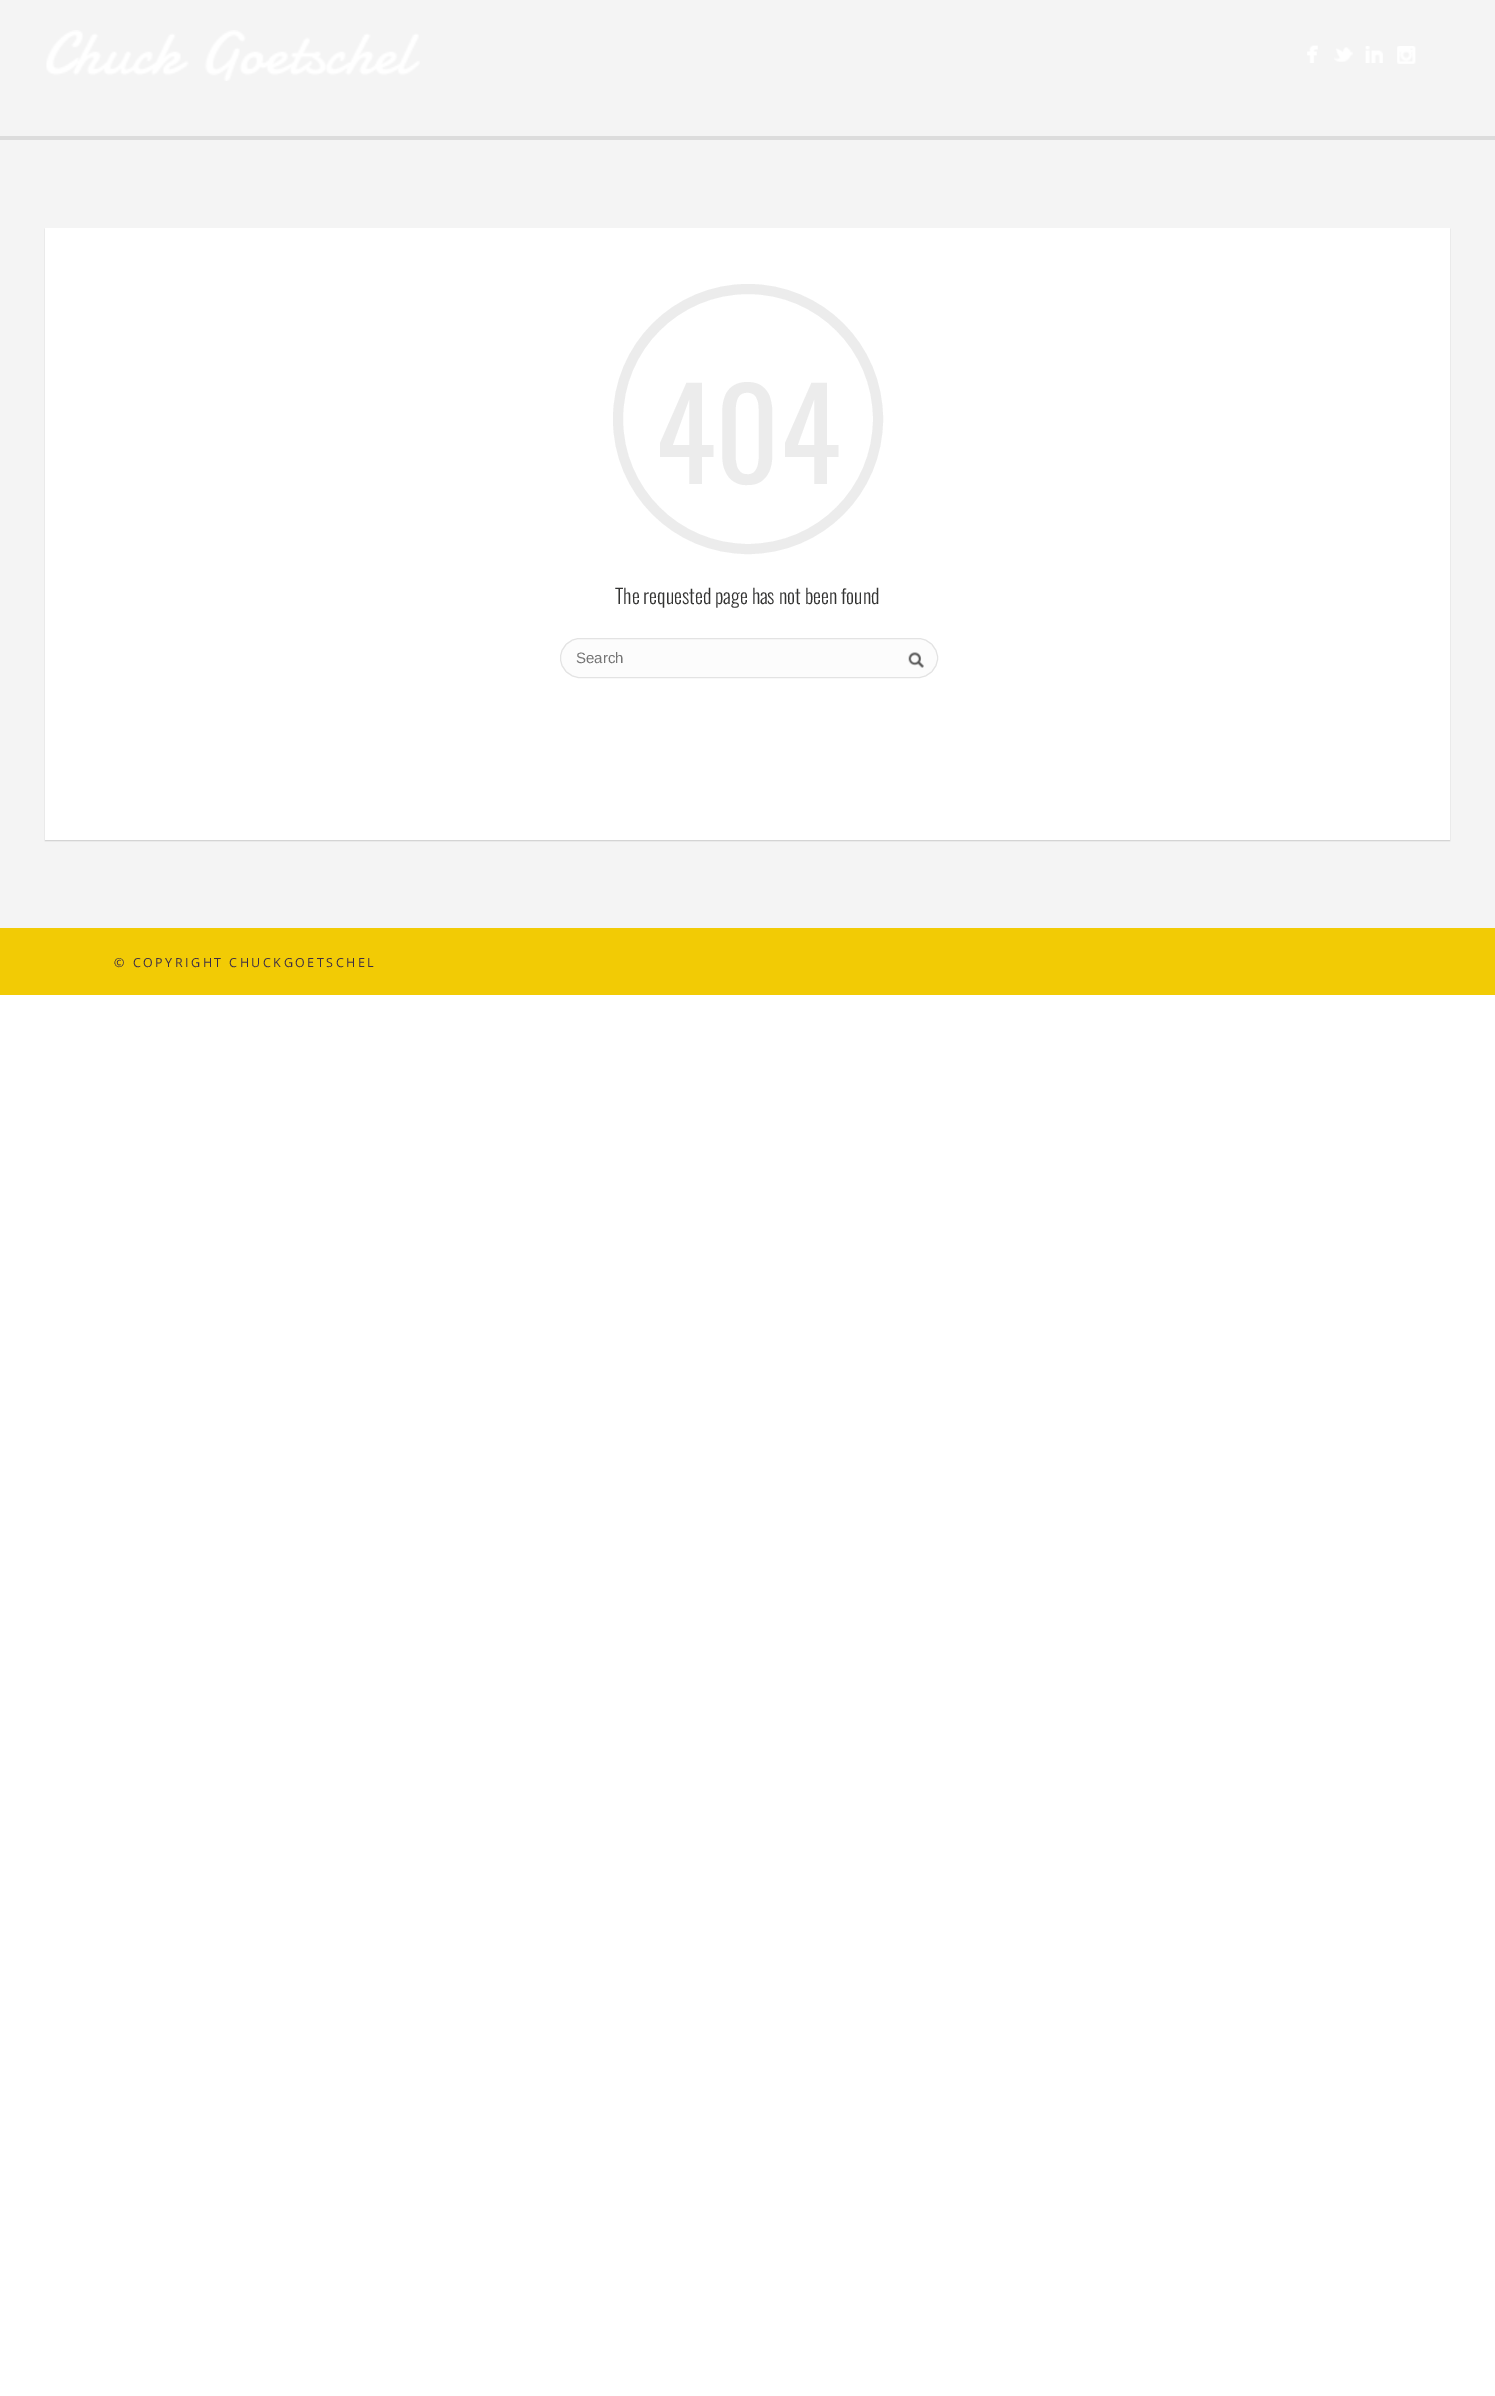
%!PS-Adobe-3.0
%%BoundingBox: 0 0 1495 2396
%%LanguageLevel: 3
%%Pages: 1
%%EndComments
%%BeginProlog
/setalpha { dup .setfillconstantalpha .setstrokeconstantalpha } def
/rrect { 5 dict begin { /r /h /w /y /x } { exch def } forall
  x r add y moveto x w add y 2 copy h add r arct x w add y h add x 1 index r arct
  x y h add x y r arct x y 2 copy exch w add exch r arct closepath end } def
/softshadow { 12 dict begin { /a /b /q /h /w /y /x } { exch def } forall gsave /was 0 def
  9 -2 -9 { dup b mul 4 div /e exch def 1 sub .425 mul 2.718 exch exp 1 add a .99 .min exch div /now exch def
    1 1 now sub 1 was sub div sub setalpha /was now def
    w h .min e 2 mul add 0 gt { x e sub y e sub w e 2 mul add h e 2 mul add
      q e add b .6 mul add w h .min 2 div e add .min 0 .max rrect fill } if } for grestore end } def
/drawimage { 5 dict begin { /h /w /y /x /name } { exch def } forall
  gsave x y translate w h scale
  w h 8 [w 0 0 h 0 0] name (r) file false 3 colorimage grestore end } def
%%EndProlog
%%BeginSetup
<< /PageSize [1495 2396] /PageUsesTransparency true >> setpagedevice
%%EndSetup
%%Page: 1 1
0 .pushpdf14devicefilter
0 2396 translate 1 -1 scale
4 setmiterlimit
1 setgray
0 0 1495 2396 rectfill
0.957 setgray
0 0 1495 928 rectfill
(images/1.raw) 46 30 374 51 drawimage
(images/2.raw) 1307 45 11 18 drawimage
(images/3.raw) 1334 47 19 15 drawimage
(images/4.raw) 1365 46 18 17 drawimage
(images/5.raw) 1397 46 19 18 drawimage
0.863 setgray
0 136 1495 4 rectfill
0 setgray
45 229 1405 612 0 0.5 0.15 softshadow
1 setgray
45 228 1405 612 rectfill
0.925 setgray
10 setlinewidth
newpath 748 419 130 0 360 arc closepath stroke
0.988 setgray
560.5 638.5 377 39 19.5 rrect gsave fill grestore
0.89 setgray
1 setlinewidth
stroke
(images/6.raw) 908 652 16 16 drawimage
0.949 0.796 0.02 setrgbcolor
0 928 1495 67 rectfill
/Oswald-Regular [125 0 0 -125 0 0] selectfont
0.925 setgray
655 484 moveto (404) show
/Oswald-Light [20 0 0 -20 0 0] selectfont
0.2 0.2 0.196 setrgbcolor
615 604 moveto (The requested page has not been found) show
/LiberationSans-Regular [15 0 0 -15 0 0] selectfont
0.459 setgray
576 663 moveto (Search) show
/OpenSans-Regular [12.5 0 0 -12.5 0 0] selectfont
0.231 0.176 0.275 setrgbcolor
114 967 moveto 2.5 0 (© COPYRIGHT CHUCKGOETSCHEL) ashow
.poppdf14devicefilter showpage
%%EOF
